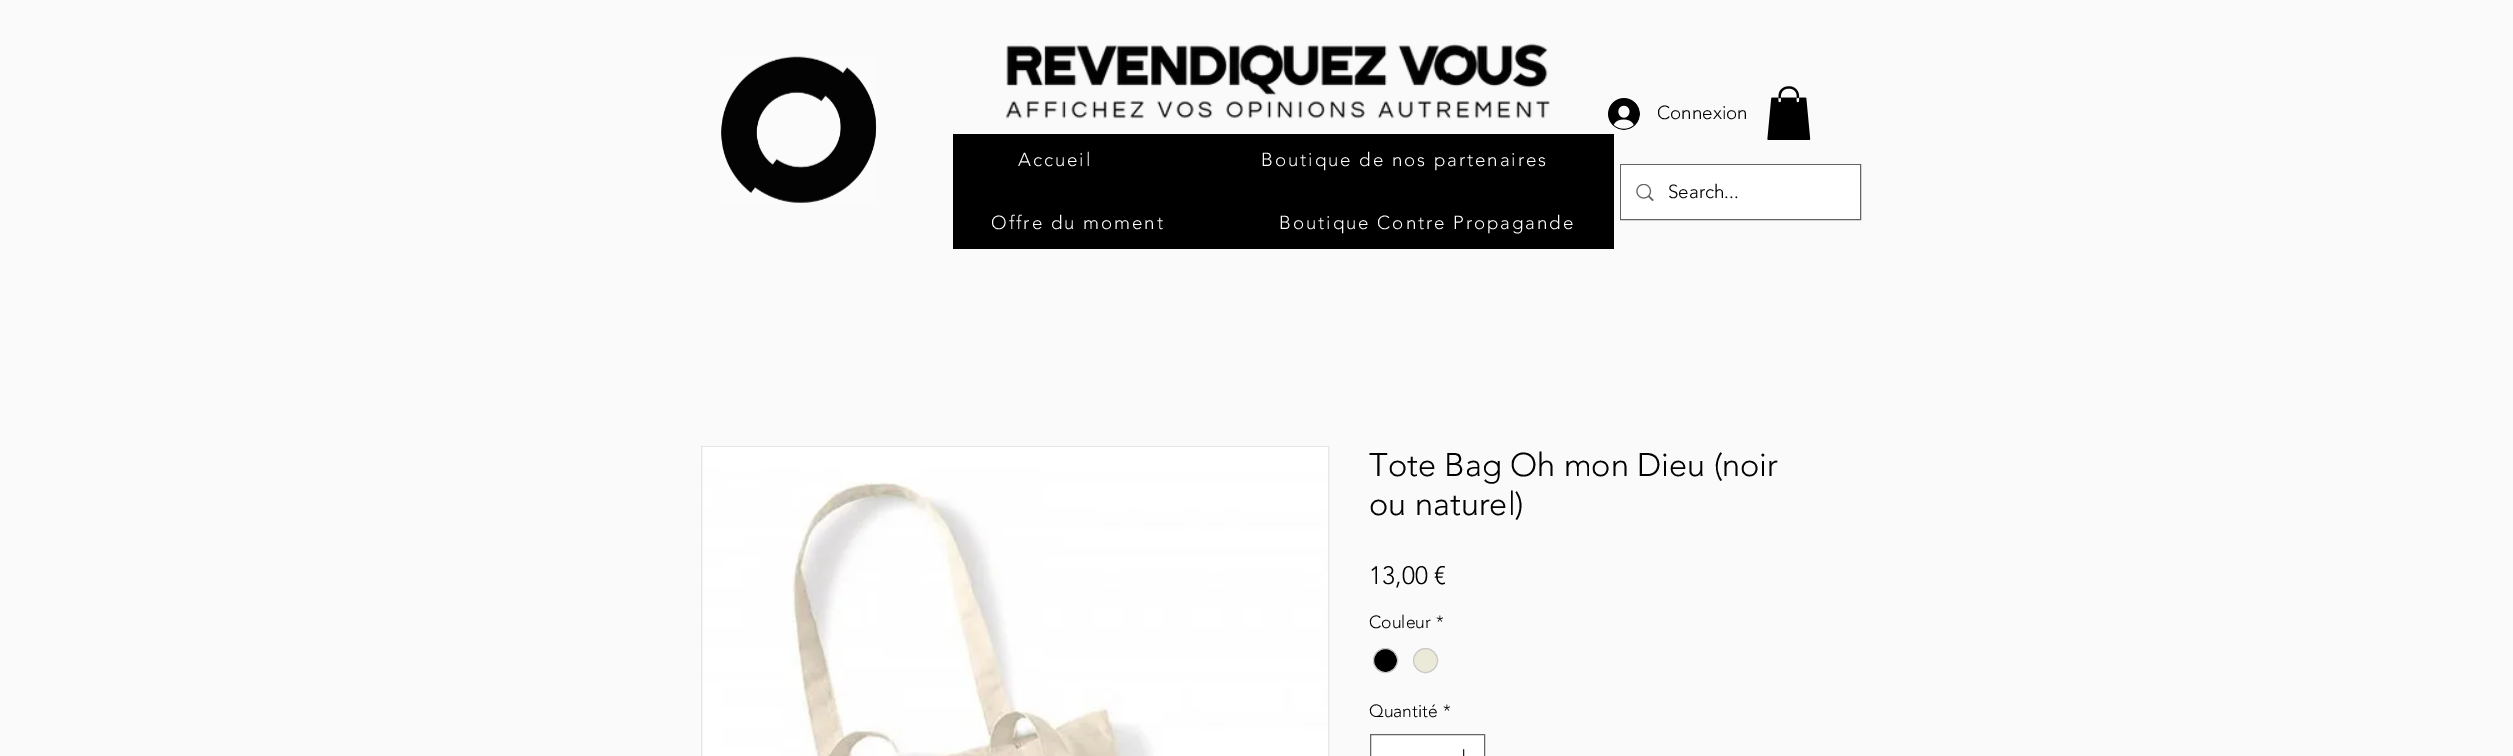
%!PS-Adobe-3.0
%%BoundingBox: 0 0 2513 756
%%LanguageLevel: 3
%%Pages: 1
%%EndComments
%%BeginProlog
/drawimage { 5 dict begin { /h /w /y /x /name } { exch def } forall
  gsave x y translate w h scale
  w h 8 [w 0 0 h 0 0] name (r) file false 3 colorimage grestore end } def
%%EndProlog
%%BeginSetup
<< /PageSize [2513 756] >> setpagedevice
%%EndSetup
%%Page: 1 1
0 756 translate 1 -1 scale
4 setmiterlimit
0.98 setgray
0 0 2513 756 rectfill
(images/1.raw) 721 56 156 147 drawimage
(images/2.raw) 1005 43 545 76 drawimage
(images/3.raw) 1608 98 32 32 drawimage
(images/4.raw) 1767 86 44 54 drawimage
0 setgray
953 134 661 115 rectfill
0.392 setgray
1620.5 164.5 240 55 rectstroke
1 setgray
1621 165 239 54 rectfill
(images/5.raw) 1636 184 18 17 drawimage
0.91 0.902 0.902 setrgbcolor
701.5 446.5 627 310 rectstroke
(images/6.raw) 703 447 625 309 drawimage
0 setgray
newpath 1385.5 660.5 12 0 360 arc closepath gsave fill grestore
0.788 setgray
stroke
0.922 0.914 0.843 setrgbcolor
newpath 1425.5 660.5 12 0 360 arc closepath gsave fill grestore
0.788 setgray
stroke
1 setgray
newpath 1370.5 734.5 moveto 1484.5 734.5 lineto 1484.5 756.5 lineto 1370.5 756.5 lineto closepath gsave fill grestore
0.4 setgray
stroke
(images/7.raw) 1463 749 2 7 drawimage
/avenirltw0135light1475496-Light [18.75 0 0 -18.75 0 0] selectfont
0 setgray
1657 119 moveto (Connexion) show
1 setgray
1018 166 moveto 1.9 0 (Accueil) ashow
1261 166 moveto 1.9 0 (Boutique de nos partenaires) ashow
991 229 moveto 1.9 0 (Offre du moment) ashow
1279 229 moveto 1.9 0 (Boutique Contre Propagande) ashow
0 setgray
1668 198 moveto (Search...) show
/avenirltw0135light1475496-Light [32.5 0 0 -32.5 0 0] selectfont
1369 476 moveto (Tote Bag Oh mon Dieu \(noir) show
1369 515 moveto (ou naturel\)) show
/avenirltw0135light1475496-Light [25 0 0 -25 0 0] selectfont
1369 584 moveto (13,00 €) show
/avenirltw0135light1475496-Light [17.5 0 0 -17.5 0 0] selectfont
1369 628 moveto (Couleur) show
1436 628 moveto (*) show
1369 717 moveto (Quantité) show
1443 717 moveto (*) show
showpage
%%EOF
